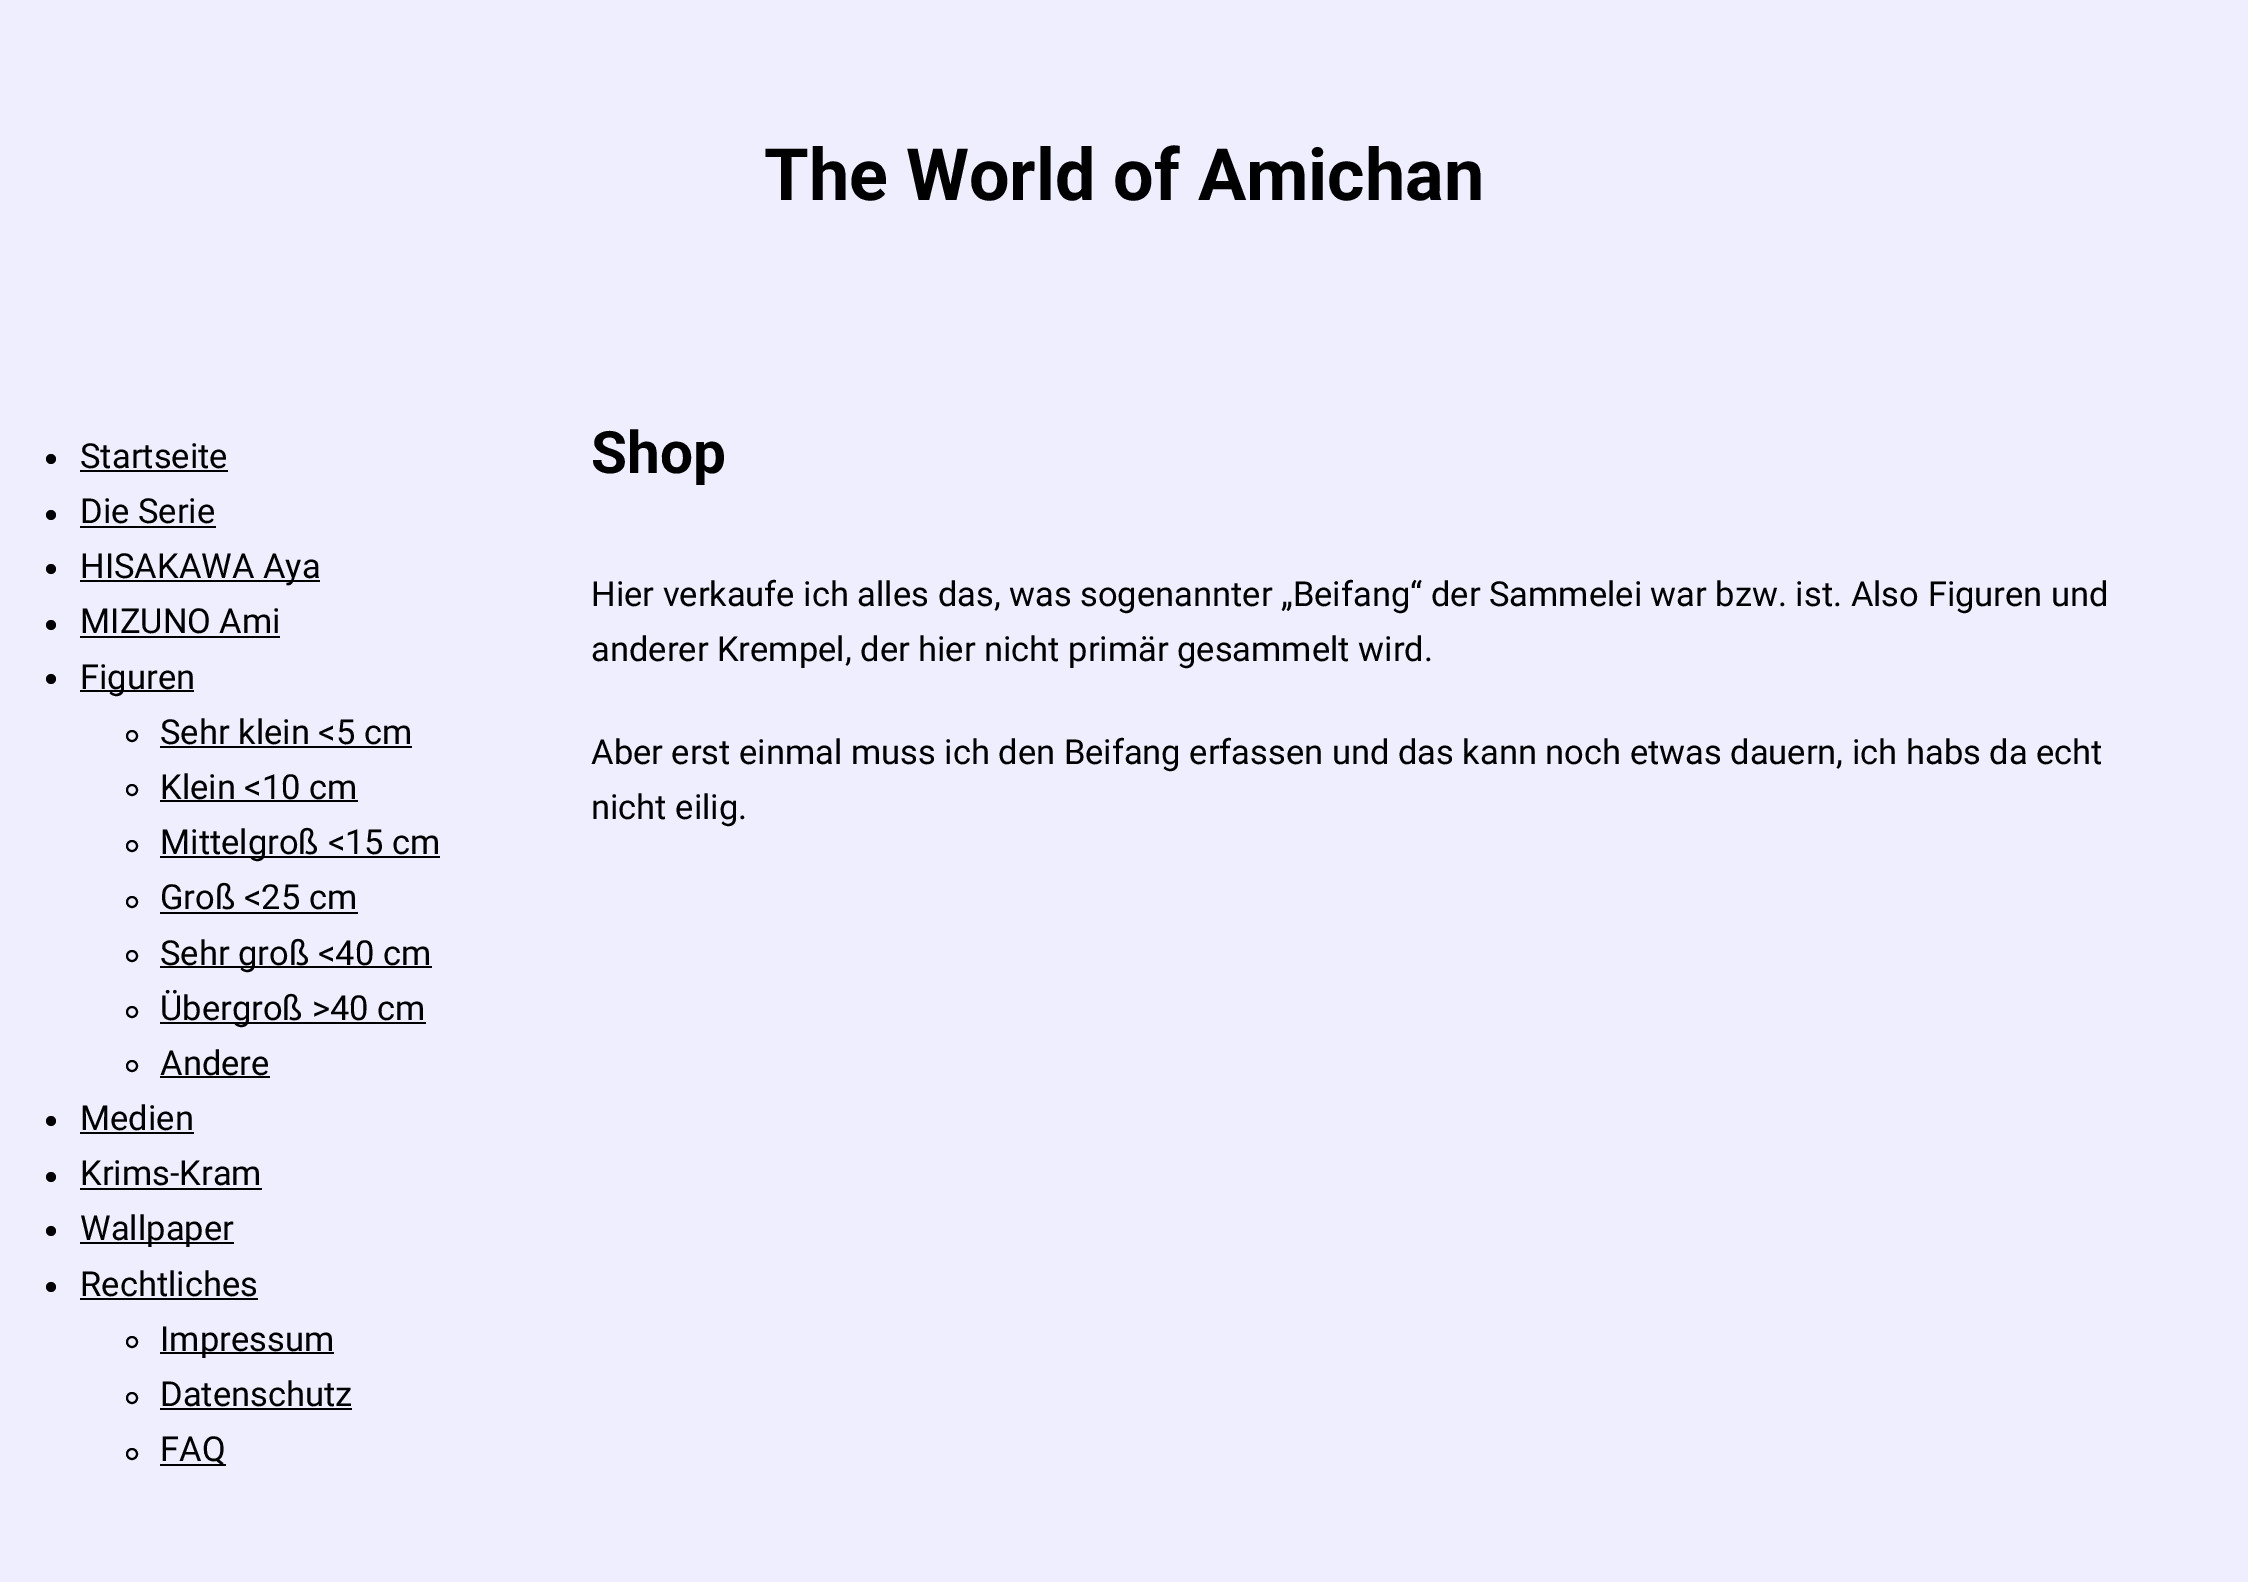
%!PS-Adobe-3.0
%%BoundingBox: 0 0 2248 1582
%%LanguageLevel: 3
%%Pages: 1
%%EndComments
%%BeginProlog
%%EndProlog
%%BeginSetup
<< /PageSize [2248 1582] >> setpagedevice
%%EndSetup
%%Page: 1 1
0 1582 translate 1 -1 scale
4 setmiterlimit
0.933 0.933 1 setrgbcolor
0 0 2248 1582 rectfill
0 setgray
newpath 51 459 5 0 360 arc closepath fill
80 470 148 2 rectfill
newpath 51 515 5 0 360 arc closepath fill
80 526 136 2 rectfill
newpath 51 569 5 0 360 arc closepath fill
80 580 240 2 rectfill
newpath 51 625 5 0 360 arc closepath fill
80 636 200 2 rectfill
newpath 51 679 5 0 360 arc closepath fill
80 690 114 2 rectfill
2 setlinewidth
newpath 132 736 5 0 360 arc closepath stroke
160 746 252 2 rectfill
newpath 132 790 5 0 360 arc closepath stroke
160 800 198 2 rectfill
newpath 132 846 5 0 360 arc closepath stroke
160 856 280 2 rectfill
newpath 132 902 5 0 360 arc closepath stroke
160 912 198 2 rectfill
newpath 132 956 5 0 360 arc closepath stroke
160 966 272 2 rectfill
newpath 132 1012 5 0 360 arc closepath stroke
160 1022 266 2 rectfill
newpath 132 1066 5 0 360 arc closepath stroke
160 1076 110 2 rectfill
newpath 51 1121 5 0 360 arc closepath fill
80 1132 114 2 rectfill
newpath 51 1177 5 0 360 arc closepath fill
80 1188 182 2 rectfill
newpath 51 1231 5 0 360 arc closepath fill
80 1242 154 2 rectfill
newpath 51 1287 5 0 360 arc closepath fill
80 1298 178 2 rectfill
newpath 132 1342 5 0 360 arc closepath stroke
160 1352 174 2 rectfill
newpath 132 1398 5 0 360 arc closepath stroke
160 1408 192 2 rectfill
newpath 132 1454 5 0 360 arc closepath stroke
160 1464 66 2 rectfill
/Roboto-Bold [72 0 0 -72 0 0] selectfont
764 200 moveto (The World of Amichan) show
/Roboto-Regular [34.5 0 0 -34.5 0 0] selectfont
80 468 moveto (Startseite) show
80 523 moveto (Die Serie) show
80 578 moveto (HISAKAWA Aya) show
80 633 moveto (MIZUNO Ami) show
80 689 moveto (Figuren) show
160 744 moveto (Sehr klein <5 cm) show
160 799 moveto (Klein <10 cm) show
160 854 moveto (Mittelgroß <15 cm) show
160 909 moveto (Groß <25 cm) show
160 965 moveto (Sehr groß <40 cm) show
160 1020 moveto (Übergroß >40 cm) show
160 1075 moveto (Andere) show
80 1130 moveto (Medien) show
80 1185 moveto (Krims-Kram) show
80 1240 moveto (Wallpaper) show
80 1296 moveto (Rechtliches) show
160 1351 moveto (Impressum) show
160 1406 moveto (Datenschutz) show
160 1461 moveto (FAQ) show
/Roboto-Bold [58.5 0 0 -58.5 0 0] selectfont
591 473 moveto (Shop) show
/Roboto-Regular [34.5 0 0 -34.5 0 0] selectfont
591 606 moveto (Hier verkaufe ich alles das, was sogenannter „Beifang“ der Sammelei war bzw. ist. Also Figuren und) show
591 661 moveto (anderer Krempel, der hier nicht primär gesammelt wird.) show
591 764 moveto (Aber erst einmal muss ich den Beifang erfassen und das kann noch etwas dauern, ich habs da echt) show
591 819 moveto (nicht eilig.) show
showpage
%%EOF
